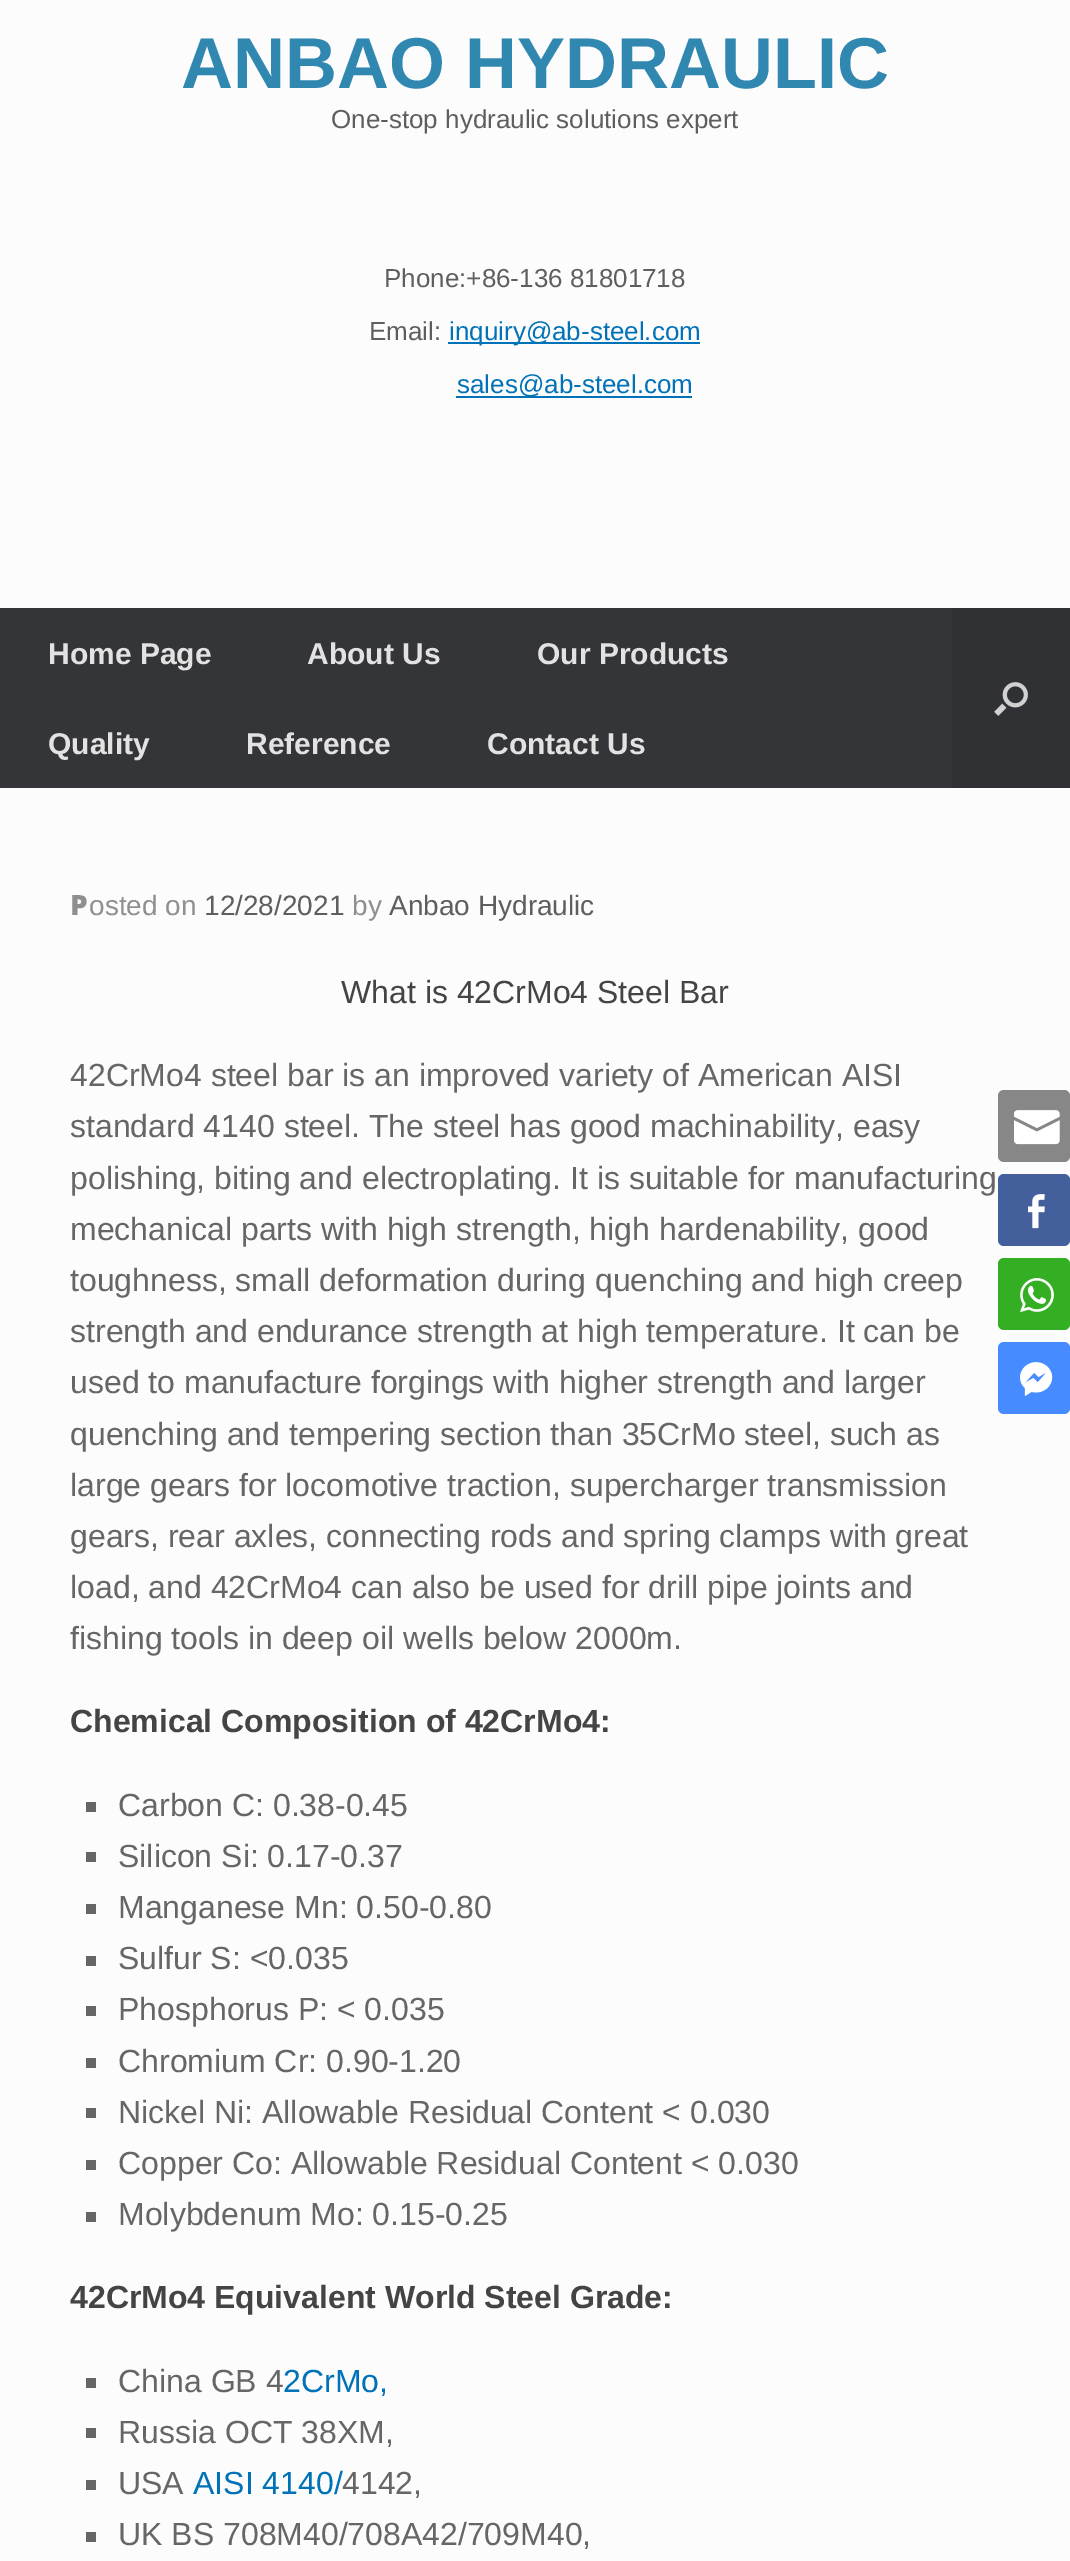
%!PS-Adobe-3.0
%%BoundingBox: 0 0 1070 2561
%%LanguageLevel: 3
%%Pages: 1
%%EndComments
%%BeginProlog
/rrect { 5 dict begin { /r /h /w /y /x } { exch def } forall
  x r add y moveto x w add y 2 copy h add r arct x w add y h add x 1 index r arct
  x y h add x y r arct x y 2 copy exch w add exch r arct closepath end } def
/drawimage { 5 dict begin { /h /w /y /x /name } { exch def } forall
  gsave x y translate w h scale
  w h 8 [w 0 0 h 0 0] name (r) file false 3 colorimage grestore end } def
%%EndProlog
%%BeginSetup
<< /PageSize [1070 2561] >> setpagedevice
%%EndSetup
%%Page: 1 1
0 2561 translate 1 -1 scale
4 setmiterlimit
0.988 setgray
0 0 1070 2561 rectfill
0 0.447 0.722 setrgbcolor
448 342 252 2 rectfill
456 396 236 2 rectfill
0.204 0.208 0.22 setrgbcolor
0 608 952 180 rectfill
0.188 0.192 0.204 setrgbcolor
952 608 118 180 rectfill
(images/1.raw) 994 682 34 34 drawimage
0.4 setgray
86 1802 10 10 rectfill
86 1852 10 10 rectfill
86 1904 10 10 rectfill
86 1956 10 10 rectfill
86 2006 10 10 rectfill
86 2058 10 10 rectfill
86 2108 10 10 rectfill
86 2160 10 10 rectfill
86 2212 10 10 rectfill
86 2378 10 10 rectfill
86 2428 10 10 rectfill
86 2480 10 10 rectfill
86 2532 10 10 rectfill
0.529 setgray
998 1090 72 72 6 rrect fill
(images/2.raw) 1014 1110 46 35 drawimage
0.263 0.376 0.612 setrgbcolor
998 1174 72 72 6 rrect fill
(images/3.raw) 1028 1194 17 35 drawimage
0.204 0.686 0.137 setrgbcolor
998 1258 72 72 6 rrect fill
(images/4.raw) 1020 1278 34 35 drawimage
0.275 0.545 1 setrgbcolor
998 1342 72 72 6 rrect fill
(images/5.raw) 1020 1362 33 34 drawimage
/LiberationSans-Bold [72 0 0 -72 0 0] selectfont
0.188 0.529 0.69 setrgbcolor
181 88 moveto (ANBAO HYDRAULIC) show
/LiberationSans-Regular [26 0 0 -26 0 0] selectfont
0.369 setgray
331 128 moveto (One-stop hydraulic solutions expert) show
384 287 moveto (Phone:+86-136 81801718) show
369 340 moveto (Email:) show
0 0.447 0.722 setrgbcolor
449 340 moveto (inquiry@ab-steel.com) show
457 393 moveto (sales@ab-steel.com) show
/LiberationSans-Bold [30 0 0 -30 0 0] selectfont
0.886 setgray
48 664 moveto (Home Page) show
307 664 moveto (About Us) show
537 664 moveto (Our Products) show
48 754 moveto (Quality) show
246 754 moveto (Reference) show
487 754 moveto (Contact Us) show
/NotoSans-Black [28 0 0 -28 0 0] selectfont
0.561 setgray
70 915 moveto (P) show
/LiberationSans-Regular [28 0 0 -28 0 0] selectfont
89 915 moveto (osted on) show
0.369 setgray
204 915 moveto (12/28/2021) show
0.561 setgray
352 915 moveto (by) show
0.369 setgray
389 915 moveto (Anbao Hydraulic) show
/LiberationSans-Regular [32 0 0 -32 0 0] selectfont
0.267 setgray
341 1003 moveto (What is 42CrMo4 Steel Bar) show
0.4 setgray
70 1086 moveto (42CrMo4 steel bar is an improved variety of American AISI) show
70 1137 moveto (standard 4140 steel. The steel has good machinability, easy) show
70 1189 moveto (polishing, biting and electroplating. It is suitable for manufacturing) show
70 1240 moveto (mechanical parts with high strength, high hardenability, good) show
70 1291 moveto (toughness, small deformation during quenching and high creep) show
70 1342 moveto (strength and endurance strength at high temperature. It can be) show
70 1393 moveto (used to manufacture forgings with higher strength and larger) show
70 1445 moveto (quenching and tempering section than 35CrMo steel, such as) show
70 1496 moveto (large gears for locomotive traction, supercharger transmission) show
70 1547 moveto (gears, rear axles, connecting rods and spring clamps with great) show
70 1598 moveto (load, and 42CrMo4 can also be used for drill pipe joints and) show
70 1649 moveto (fishing tools in deep oil wells below 2000m.) show
/LiberationSans-Bold [32 0 0 -32 0 0] selectfont
0.267 setgray
70 1732 moveto (Chemical Composition of 42CrMo4:) show
/LiberationSans-Regular [32 0 0 -32 0 0] selectfont
0.4 setgray
118 1816 moveto (Carbon C: 0.38-0.45) show
118 1867 moveto (Silicon Si: 0.17-0.37) show
118 1918 moveto (Manganese Mn: 0.50-0.80) show
118 1969 moveto (Sulfur S: <0.035) show
118 2020 moveto (Phosphorus P: < 0.035) show
118 2072 moveto (Chromium Cr: 0.90-1.20) show
118 2123 moveto (Nickel Ni: Allowable Residual Content < 0.030) show
118 2174 moveto (Copper Co: Allowable Residual Content < 0.030) show
118 2225 moveto (Molybdenum Mo: 0.15-0.25) show
/LiberationSans-Bold [32 0 0 -32 0 0] selectfont
0.267 setgray
70 2308 moveto (42CrMo4 Equivalent World Steel Grade:) show
/LiberationSans-Regular [32 0 0 -32 0 0] selectfont
0.4 setgray
118 2392 moveto (China GB 4) show
0 0.447 0.722 setrgbcolor
283 2392 moveto (2CrMo,) show
0.4 setgray
118 2443 moveto (Russia OCT 38XM,) show
118 2494 moveto (USA) show
0 0.447 0.722 setrgbcolor
193 2494 moveto (AISI 4140/) show
0.4 setgray
342 2494 moveto (4142,) show
118 2545 moveto (UK BS 708M40/708A42/709M40,) show
showpage
%%EOF
